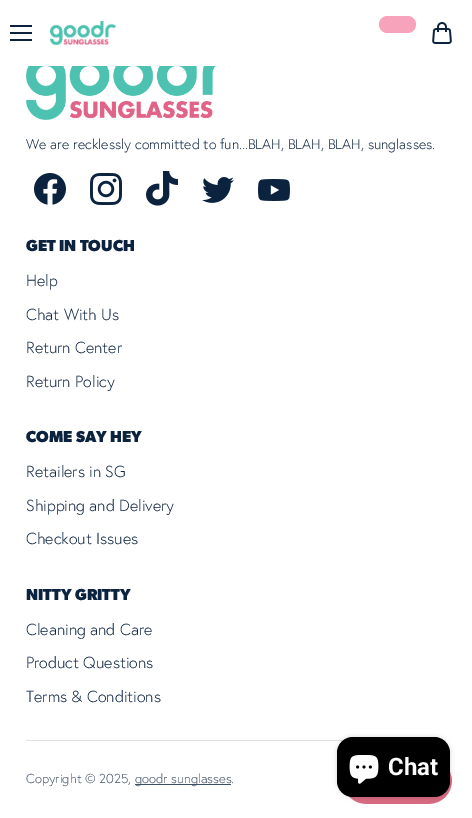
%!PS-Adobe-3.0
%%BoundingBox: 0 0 472 818
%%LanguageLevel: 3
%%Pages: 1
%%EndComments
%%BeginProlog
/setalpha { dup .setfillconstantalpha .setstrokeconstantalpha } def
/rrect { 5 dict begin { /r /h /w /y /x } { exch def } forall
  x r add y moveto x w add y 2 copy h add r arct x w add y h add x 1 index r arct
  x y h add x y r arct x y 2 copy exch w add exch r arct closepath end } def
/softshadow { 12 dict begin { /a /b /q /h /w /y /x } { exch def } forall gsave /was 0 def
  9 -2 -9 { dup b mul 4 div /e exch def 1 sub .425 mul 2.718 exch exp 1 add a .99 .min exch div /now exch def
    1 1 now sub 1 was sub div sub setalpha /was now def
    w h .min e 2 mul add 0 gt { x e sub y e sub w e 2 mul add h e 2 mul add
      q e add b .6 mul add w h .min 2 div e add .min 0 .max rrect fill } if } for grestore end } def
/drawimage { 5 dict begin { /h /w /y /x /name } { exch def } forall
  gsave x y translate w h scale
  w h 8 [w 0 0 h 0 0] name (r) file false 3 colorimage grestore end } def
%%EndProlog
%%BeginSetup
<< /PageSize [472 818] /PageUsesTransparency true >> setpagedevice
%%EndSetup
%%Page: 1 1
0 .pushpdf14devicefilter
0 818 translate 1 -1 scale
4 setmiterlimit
1 setgray
0 0 472 818 rectfill
0.047 0.137 0.251 setrgbcolor
10 25 22 2 rectfill
10 32 22 2 rectfill
10 39 22 2 rectfill
(images/1.raw) 50 21 67 24 drawimage
0.973 0.639 0.737 setrgbcolor
379 16 37 17 8.5 rrect fill
(images/2.raw) 432 22 20 22 drawimage
(images/3.raw) 26 66 204 54 drawimage
(images/4.raw) 34 173 32 32 drawimage
(images/5.raw) 90 173 32 32 drawimage
(images/6.raw) 146 171 32 35 drawimage
(images/7.raw) 202 177 32 26 drawimage
(images/8.raw) 258 179 32 22 drawimage
0.878 setgray
26 740 420 1 rectfill
0.239 0.31 0.4 setrgbcolor
135 784 96 1 rectfill
(images/10.raw) 348 772 104 32 drawimage
0 setgray
337 737 113 60 16 2.5 0.15 softshadow
337 737 113 60 16 rrect fill
(images/9.raw) 349 755 30 29 drawimage
/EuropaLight-Light [14 0 0 -14 0 0] selectfont
0.047 0.137 0.251 setrgbcolor
26 149 moveto (We are recklessly committed to fun...BLAH, BLAH, BLAH, sunglasses.) show
/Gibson-Bold [16 0 0 -16 0 0] selectfont
26 251 moveto (GET IN TOUCH) show
/EuropaLight-Light [16 0 0 -16 0 0] selectfont
26 286 moveto (Help) show
26 320 moveto (Chat With Us) show
26 353 moveto (Return Center) show
26 387 moveto (Return Policy) show
/Gibson-Bold [16 0 0 -16 0 0] selectfont
26 442 moveto (COME SAY HEY) show
/EuropaLight-Light [16 0 0 -16 0 0] selectfont
26 477 moveto (Retailers in SG) show
26 511 moveto (Shipping and Delivery) show
26 544 moveto (Checkout Issues) show
/Gibson-Bold [16 0 0 -16 0 0] selectfont
26 600 moveto (NITTY GRITTY) show
/EuropaLight-Light [16 0 0 -16 0 0] selectfont
26 635 moveto (Cleaning and Care) show
26 668 moveto (Product Questions) show
26 702 moveto (Terms & Conditions) show
/EuropaLight-Light [13 0 0 -13 0 0] selectfont
0.239 0.31 0.4 setrgbcolor
26 783 moveto (Copyright © 2025,) show
135 783 moveto (goodr sunglasses) show
231 783 moveto (.) show
/Roboto-Bold [24 0 0 -24 0 0] selectfont
1 setgray
388 775 moveto (Chat) show
.poppdf14devicefilter showpage
%%EOF
